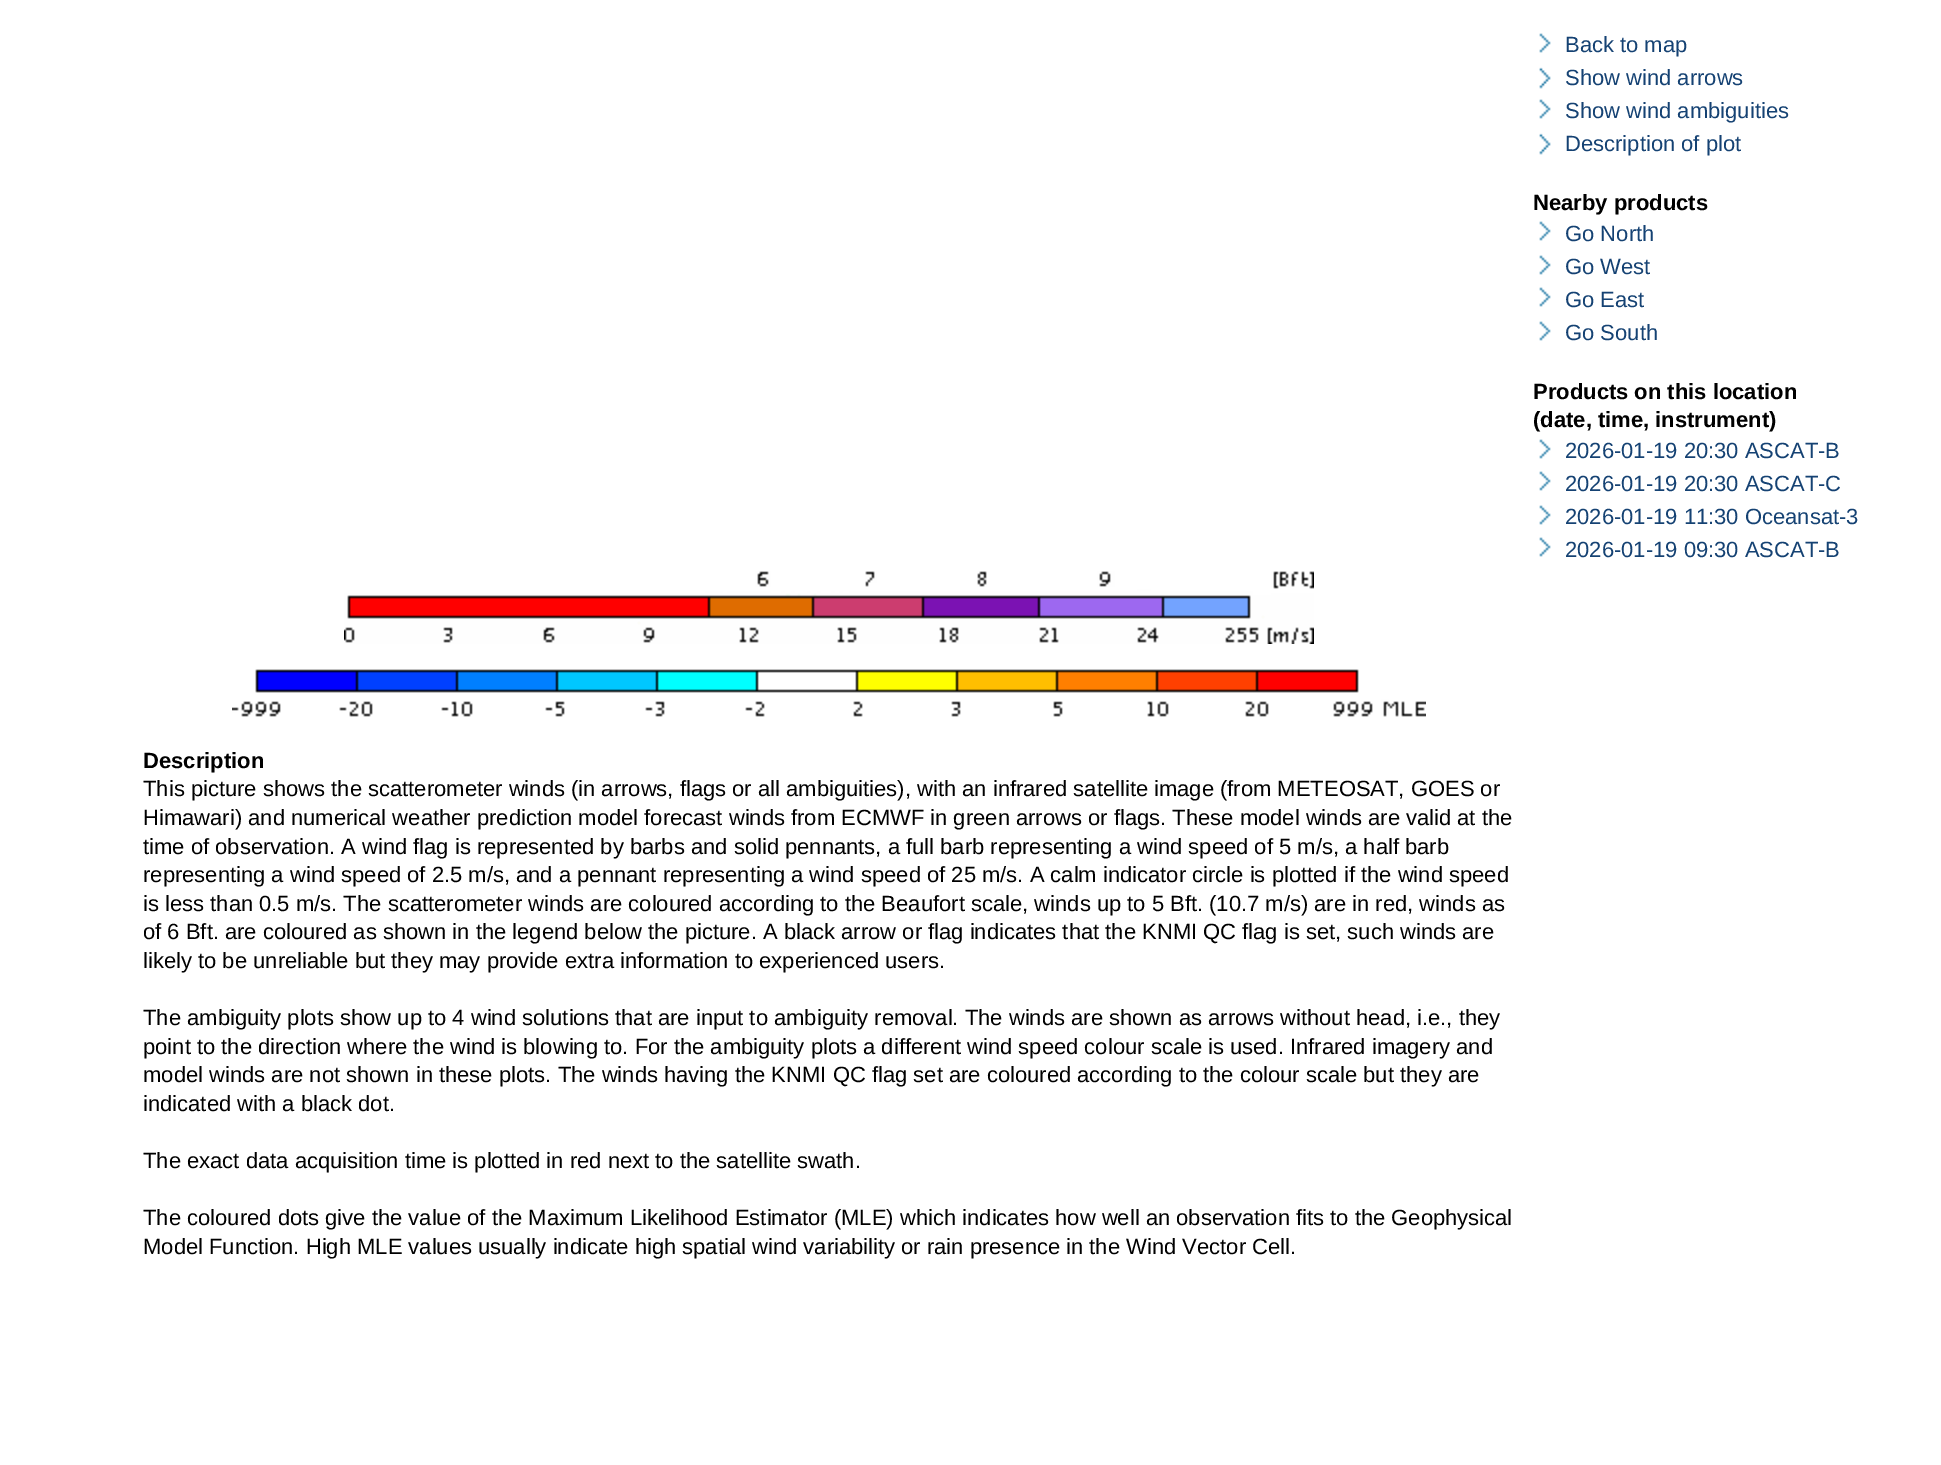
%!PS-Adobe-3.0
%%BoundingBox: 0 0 1941 1465
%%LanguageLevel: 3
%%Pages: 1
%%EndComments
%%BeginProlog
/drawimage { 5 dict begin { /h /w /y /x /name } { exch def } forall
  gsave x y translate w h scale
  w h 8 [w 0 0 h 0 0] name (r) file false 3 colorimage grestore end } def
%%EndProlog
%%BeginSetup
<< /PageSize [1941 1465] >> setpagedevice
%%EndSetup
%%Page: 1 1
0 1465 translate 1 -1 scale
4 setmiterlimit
1 setgray
0 0 1941 1465 rectfill
(images/1.raw) 1539 33 12 20 drawimage
(images/2.raw) 1539 67 12 22 drawimage
(images/1.raw) 1539 99 12 20 drawimage
(images/2.raw) 1539 133 12 22 drawimage
(images/1.raw) 1539 221 12 20 drawimage
(images/1.raw) 1539 255 12 20 drawimage
(images/1.raw) 1539 287 12 20 drawimage
(images/1.raw) 1539 321 12 20 drawimage
(images/1.raw) 1539 439 12 20 drawimage
(images/1.raw) 1539 471 12 20 drawimage
(images/1.raw) 1539 505 12 20 drawimage
(images/1.raw) 1539 537 12 20 drawimage
(images/3.raw) 344 571 970 73 drawimage
(images/4.raw) 232 669 1194 48 drawimage
/LiberationSans-Regular [22 0 0 -22 0 0] selectfont
0.082 0.259 0.451 setrgbcolor
1565 52 moveto (Back to map) show
1565 85 moveto (Show wind arrows) show
1565 118 moveto (Show wind ambiguities) show
1565 151 moveto (Description of plot) show
/LiberationSans-Bold [22 0 0 -22 0 0] selectfont
0 setgray
1533 210 moveto (Nearby products) show
/LiberationSans-Regular [22 0 0 -22 0 0] selectfont
0.082 0.259 0.451 setrgbcolor
1565 241 moveto (Go North) show
1565 274 moveto (Go West) show
1565 307 moveto (Go East) show
1565 340 moveto (Go South) show
/LiberationSans-Bold [22 0 0 -22 0 0] selectfont
0 setgray
1533 399 moveto (Products on this location) show
1533 427 moveto (\(date, time, instrument\)) show
/LiberationSans-Regular [22 0 0 -22 0 0] selectfont
0.082 0.259 0.451 setrgbcolor
1565 458 moveto (2026-01-19 20:30 ASCAT-B) show
1565 491 moveto (2026-01-19 20:30 ASCAT-C) show
1565 524 moveto (2026-01-19 11:30 Oceansat-3) show
1565 557 moveto (2026-01-19 09:30 ASCAT-B) show
/LiberationSans-Bold [22 0 0 -22 0 0] selectfont
0 setgray
143 768 moveto (Description) show
/LiberationSans-Regular [22 0 0 -22 0 0] selectfont
143 796 moveto (This picture shows the scatterometer winds \(in arrows, flags or all ambiguities\), with an infrared satellite image \(from METEOSAT, GOES or) show
143 825 moveto (Himawari\) and numerical weather prediction model forecast winds from ECMWF in green arrows or flags. These model winds are valid at the) show
143 854 moveto (time of observation. A wind flag is represented by barbs and solid pennants, a full barb representing a wind speed of 5 m/s, a half barb) show
143 882 moveto (representing a wind speed of 2.5 m/s, and a pennant representing a wind speed of 25 m/s. A calm indicator circle is plotted if the wind speed) show
143 911 moveto (is less than 0.5 m/s. The scatterometer winds are coloured according to the Beaufort scale, winds up to 5 Bft. \(10.7 m/s\) are in red, winds as) show
143 939 moveto (of 6 Bft. are coloured as shown in the legend below the picture. A black arrow or flag indicates that the KNMI QC flag is set, such winds are) show
143 968 moveto (likely to be unreliable but they may provide extra information to experienced users.) show
143 1025 moveto (The ambiguity plots show up to 4 wind solutions that are input to ambiguity removal. The winds are shown as arrows without head, i.e., they) show
143 1054 moveto (point to the direction where the wind is blowing to. For the ambiguity plots a different wind speed colour scale is used. Infrared imagery and) show
143 1082 moveto (model winds are not shown in these plots. The winds having the KNMI QC flag set are coloured according to the colour scale but they are) show
143 1111 moveto (indicated with a black dot.) show
143 1168 moveto (The exact data acquisition time is plotted in red next to the satellite swath.) show
143 1225 moveto (The coloured dots give the value of the Maximum Likelihood Estimator \(MLE\) which indicates how well an observation fits to the Geophysical) show
143 1254 moveto (Model Function. High MLE values usually indicate high spatial wind variability or rain presence in the Wind Vector Cell.) show
showpage
%%EOF
